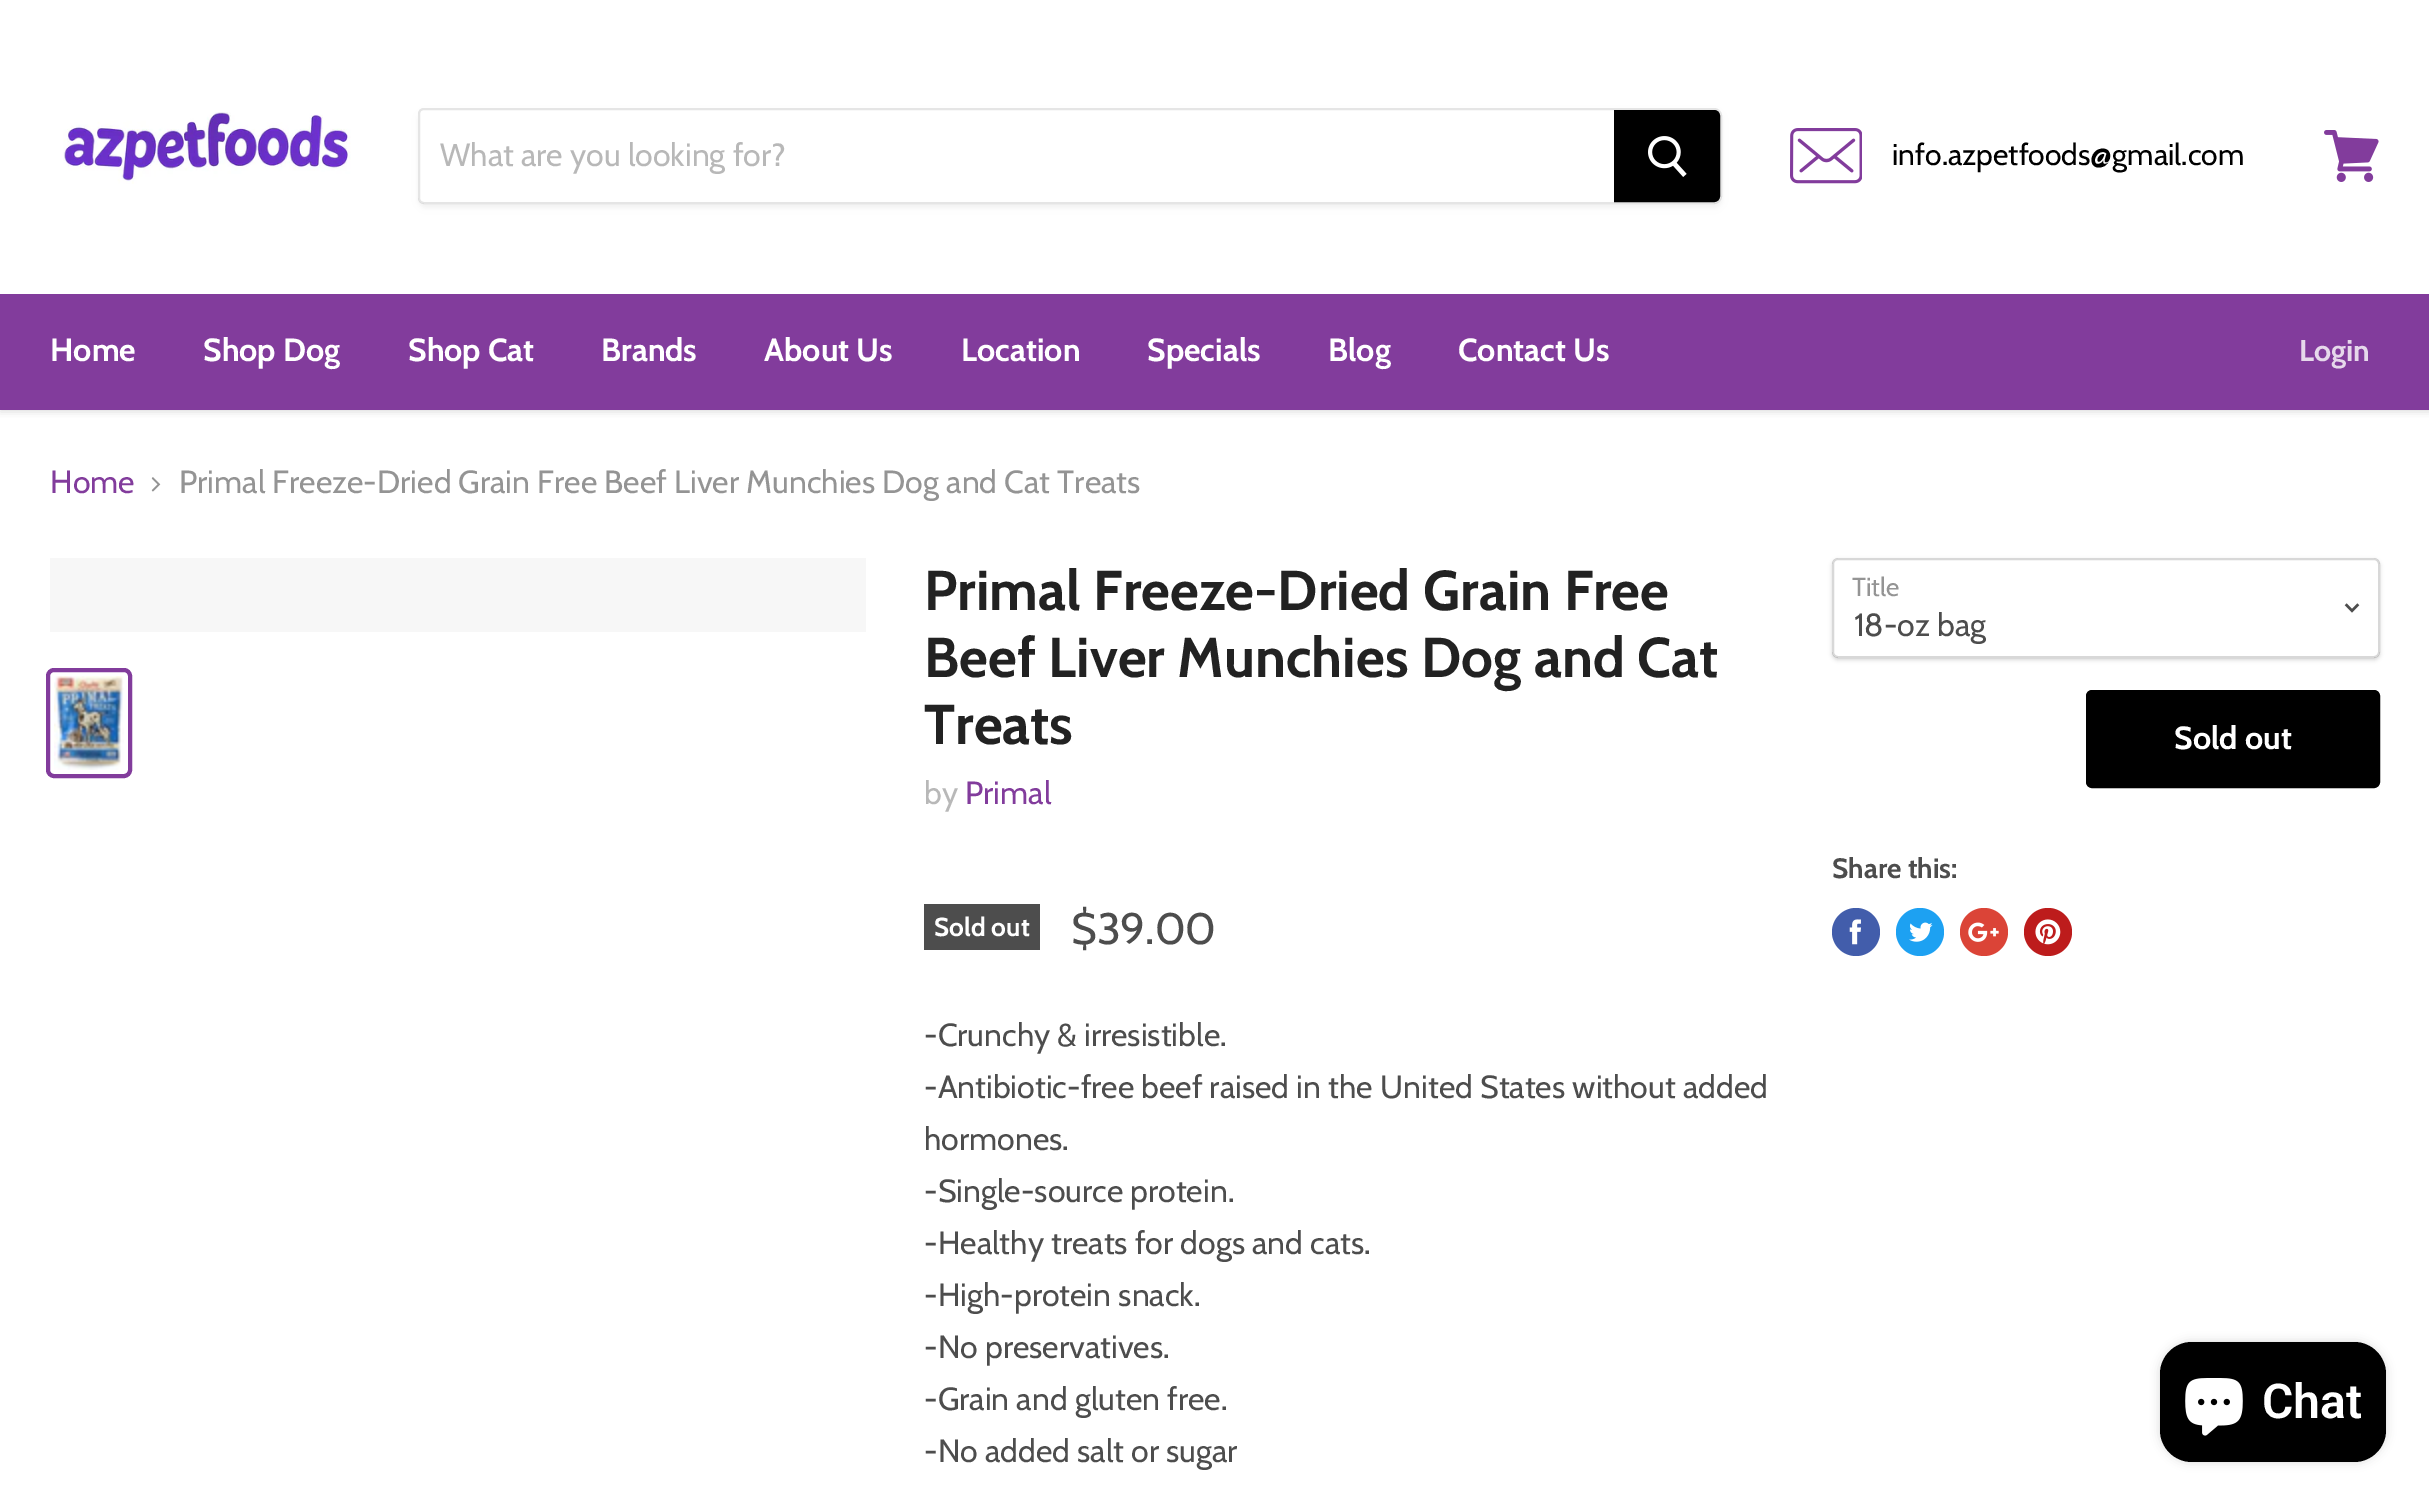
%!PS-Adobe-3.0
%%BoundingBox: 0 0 2429 1503
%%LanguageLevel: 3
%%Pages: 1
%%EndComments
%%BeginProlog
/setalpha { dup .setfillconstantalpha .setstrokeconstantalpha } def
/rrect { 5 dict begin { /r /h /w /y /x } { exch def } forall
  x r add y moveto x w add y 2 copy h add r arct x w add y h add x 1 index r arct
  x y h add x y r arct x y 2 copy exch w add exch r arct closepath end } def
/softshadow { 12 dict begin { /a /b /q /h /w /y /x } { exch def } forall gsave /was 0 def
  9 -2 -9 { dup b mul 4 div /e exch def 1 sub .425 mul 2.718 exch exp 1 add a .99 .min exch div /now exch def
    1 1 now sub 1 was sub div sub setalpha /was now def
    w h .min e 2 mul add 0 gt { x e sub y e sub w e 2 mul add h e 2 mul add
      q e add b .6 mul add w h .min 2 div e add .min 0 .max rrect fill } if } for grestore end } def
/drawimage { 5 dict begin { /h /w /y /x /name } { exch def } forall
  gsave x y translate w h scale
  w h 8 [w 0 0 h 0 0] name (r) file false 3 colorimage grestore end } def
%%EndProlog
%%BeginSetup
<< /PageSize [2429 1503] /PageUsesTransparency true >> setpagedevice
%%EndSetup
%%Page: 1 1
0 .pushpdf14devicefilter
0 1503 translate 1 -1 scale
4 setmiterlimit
1 setgray
0 0 2429 1503 rectfill
gsave
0 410 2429 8 rectclip
0.498 setgray
0 2 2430 410 0 4 0.25 softshadow
grestore
(images/1.raw) 63 112 288 72 drawimage
gsave
newpath 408 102 moveto 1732 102 lineto 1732 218 lineto 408 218 lineto closepath 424 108 moveto 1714 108 lineto 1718.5 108 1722 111.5 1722 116 curveto 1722 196 lineto 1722 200.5 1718.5 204 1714 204 curveto 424 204 lineto 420.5 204 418 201.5 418 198 curveto 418 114 lineto 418 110.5 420.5 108 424 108 curveto closepath eoclip newpath
0.498 setgray
418 112 1304 96 8 3 0.11 softshadow
grestore
0.2 setalpha
0.498 setgray
2 setlinewidth
newpath 424 109 moveto 1714 109 lineto 1718 109 1721 112 1721 116 curveto 1721 196 lineto 1721 200 1718 203 1714 203 curveto 424 203 lineto 421 203 419 201 419 198 curveto 419 114 lineto 419 111 421 109 424 109 curveto closepath stroke
1 setalpha
0 setgray
newpath 1615 111 moveto 1714 111 lineto 1717 111 1719 113 1719 116 curveto 1719 196 lineto 1719 199 1717 201 1714 201 curveto 1615 201 lineto closepath gsave fill grestore
stroke
(images/2.raw) 1648 136 39 41 drawimage
(images/3.raw) 1790 128 72 56 drawimage
(images/4.raw) 2324 130 55 52 drawimage
0.51 0.235 0.612 setrgbcolor
0 294 2429 116 rectfill
(images/5.raw) 151 477 10 15 drawimage
0.969 setgray
50 558 816 74 rectfill
0.51 0.235 0.612 setrgbcolor
4 setlinewidth
48 670 82 106 6 rrect stroke
(images/6.raw) 54 676 70 94 drawimage
0.302 setgray
924 904 116 46 rectfill
gsave
newpath 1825 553 moveto 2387 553 lineto 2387 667 lineto 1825 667 lineto closepath 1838 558 moveto 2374 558 lineto 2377.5 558 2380 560.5 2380 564 curveto 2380 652 lineto 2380 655.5 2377.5 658 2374 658 curveto 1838 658 lineto 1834.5 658 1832 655.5 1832 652 curveto 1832 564 lineto 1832 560.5 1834.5 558 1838 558 curveto closepath eoclip newpath
0 setgray
1832 560 548 100 6 2 0.15 softshadow
grestore
0.3 setalpha
0.498 setgray
2 setlinewidth
1833 559 546 98 5 rrect stroke
1 setalpha
(images/7.raw) 2344 603 16 10 drawimage
0 setgray
2087 691 292 96 5 rrect gsave fill grestore
stroke
0.259 0.365 0.671 setrgbcolor
newpath 1856 932 24 0 360 arc closepath fill
(images/8.raw) 1849 919 12 26 drawimage
0.114 0.631 0.949 setrgbcolor
newpath 1920 932 24 0 360 arc closepath fill
(images/9.raw) 1909 922 24 20 drawimage
0.859 0.267 0.216 setrgbcolor
newpath 1984 932 24 0 360 arc closepath fill
(images/10.raw) 1968 922 31 20 drawimage
0.741 0.11 0.11 setrgbcolor
newpath 2048 932 24 0 360 arc closepath fill
(images/11.raw) 2035 919 26 26 drawimage
0 setgray
2160 1342 226 120 32 5 0.15 softshadow
2160 1342 226 120 32 rrect fill
(images/12.raw) 2185 1378 58 58 drawimage
/Cabin-Regular [32 0 0 -32 0 0] selectfont
0.722 setgray
440 166 moveto (What are you looking for?) show
/Cabin-Regular [30 0 0 -30 0 0] selectfont
0 setgray
1892 165 moveto (info.azpetfoods@gmail.com) show
/Cabin-Bold [32 0 0 -32 0 0] selectfont
1 setgray
50 361 moveto (Home) show
203 361 moveto (Shop Dog) show
408 361 moveto (Shop Cat) show
601 361 moveto (Brands) show
764 361 moveto (About Us) show
961 361 moveto (Location) show
1147 361 moveto (Specials) show
1328 361 moveto (Blog) show
1458 361 moveto (Contact Us) show
/Cabin-Bold [30 0 0 -30 0 0] selectfont
0.902 0.847 0.922 setrgbcolor
2299 361 moveto (Login) show
/Cabin-Regular [32 0 0 -32 0 0] selectfont
0.51 0.235 0.612 setrgbcolor
50 493 moveto (Home) show
0.58 setgray
179 493 moveto (Primal Freeze-Dried Grain Free Beef Liver Munchies Dog and Cat Treats) show
/Cabin-Bold [56 0 0 -56 0 0] selectfont
0.133 setgray
924 610 moveto (Primal Freeze-Dried Grain Free) show
924 677 moveto (Beef Liver Munchies Dog and Cat) show
924 744 moveto (Treats) show
/Cabin-Regular [32 0 0 -32 0 0] selectfont
0.722 setgray
924 804 moveto (by) show
0.51 0.235 0.612 setrgbcolor
965 804 moveto (Primal) show
/Cabin-Bold [26 0 0 -26 0 0] selectfont
1 setgray
934 936 moveto (Sold out) show
/Cabin-Regular [44 0 0 -44 0 0] selectfont
0.302 setgray
1071 944 moveto ($39.00) show
/Cabin-Regular [32 0 0 -32 0 0] selectfont
924 1046 moveto (-Crunchy & irresistible.) show
924 1098 moveto (-Antibiotic-free beef raised in the United States without added) show
924 1150 moveto (hormones.) show
924 1202 moveto (-Single-source protein.) show
924 1254 moveto (-Healthy treats for dogs and cats.) show
924 1306 moveto (-High-protein snack.) show
924 1358 moveto (-No preservatives.) show
924 1410 moveto (-Grain and gluten free.) show
924 1462 moveto (-No added salt or sugar) show
/Cabin-Regular [26 0 0 -26 0 0] selectfont
0.58 setgray
1852 596 moveto (Title) show
/Cabin-Regular [32 0 0 -32 0 0] selectfont
0.302 setgray
1854 636 moveto (18-oz bag) show
/Cabin-Bold [32 0 0 -32 0 0] selectfont
1 setgray
2174 749 moveto (Sold out) show
/Cabin-Bold [28 0 0 -28 0 0] selectfont
0.302 setgray
1832 878 moveto (Share this:) show
/Roboto-SemiBold [48 0 0 -48 0 0] selectfont
1 setgray
2262 1418 moveto (Chat) show
.poppdf14devicefilter showpage
%%EOF
